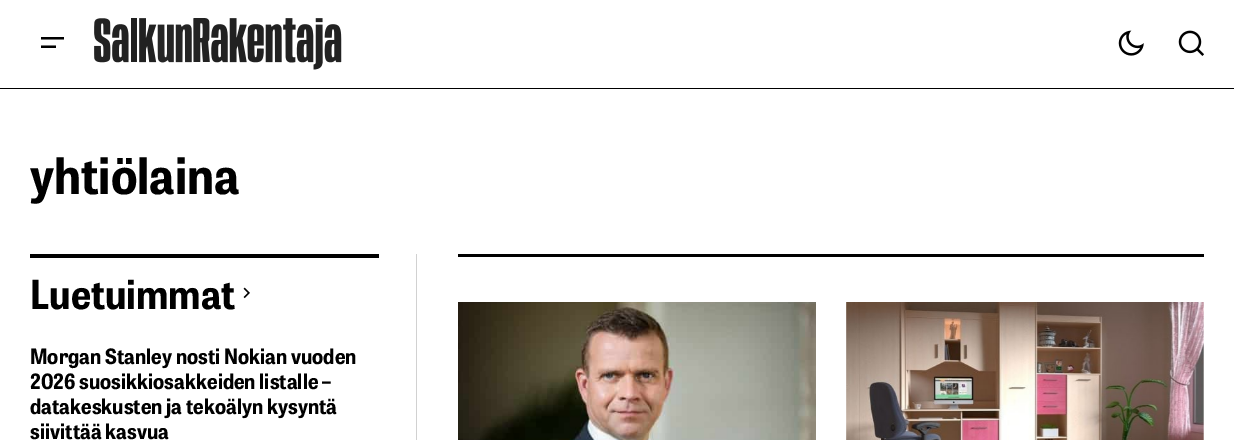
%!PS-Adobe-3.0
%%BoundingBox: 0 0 1252 440
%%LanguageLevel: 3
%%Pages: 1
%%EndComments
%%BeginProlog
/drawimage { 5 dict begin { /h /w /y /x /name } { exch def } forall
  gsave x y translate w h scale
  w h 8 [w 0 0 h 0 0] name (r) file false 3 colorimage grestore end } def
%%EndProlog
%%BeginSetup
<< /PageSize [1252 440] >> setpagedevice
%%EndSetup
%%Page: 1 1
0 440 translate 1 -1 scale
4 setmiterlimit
1 setgray
0 0 1252 440 rectfill
0 setgray
newpath 41 37 moveto 64 37 lineto 64 39.5 lineto 41 39.5 lineto closepath 41 45.5 moveto 56 45.5 lineto 56 48 lineto 41 48 lineto closepath fill
(images/1.raw) 94 18 248 52 drawimage
(images/2.raw) 1118 30 26 26 drawimage
(images/3.raw) 1178 30 26 26 drawimage
0 88 1234 1 rectfill
0.82 setgray
416 254 1 186 rectfill
0 setgray
30 254 349 4 rectfill
(images/4.raw) 243 287 7 12 drawimage
458 254 746 3 rectfill
(images/5.raw) 458 302 358 138 drawimage
(images/6.raw) 846 302 358 138 drawimage
/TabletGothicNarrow-Bold [50 0 0 -50 0 0] selectfont
30 194 moveto (yhtiölaina) show
/TabletGothicNarrow-Bold [40 0 0 -40 0 0] selectfont
30 309 moveto (Luetuimmat) show
/TabletGothicNarrow-Bold [21 0 0 -21 0 0] selectfont
30 364 moveto (Morgan Stanley nosti Nokian vuoden) show
30 389 moveto (2026 suosikkiosakkeiden listalle –) show
30 414 moveto (datakeskusten ja tekoälyn kysyntä) show
30 439 moveto (siivittää kasvua) show
showpage
%%EOF
